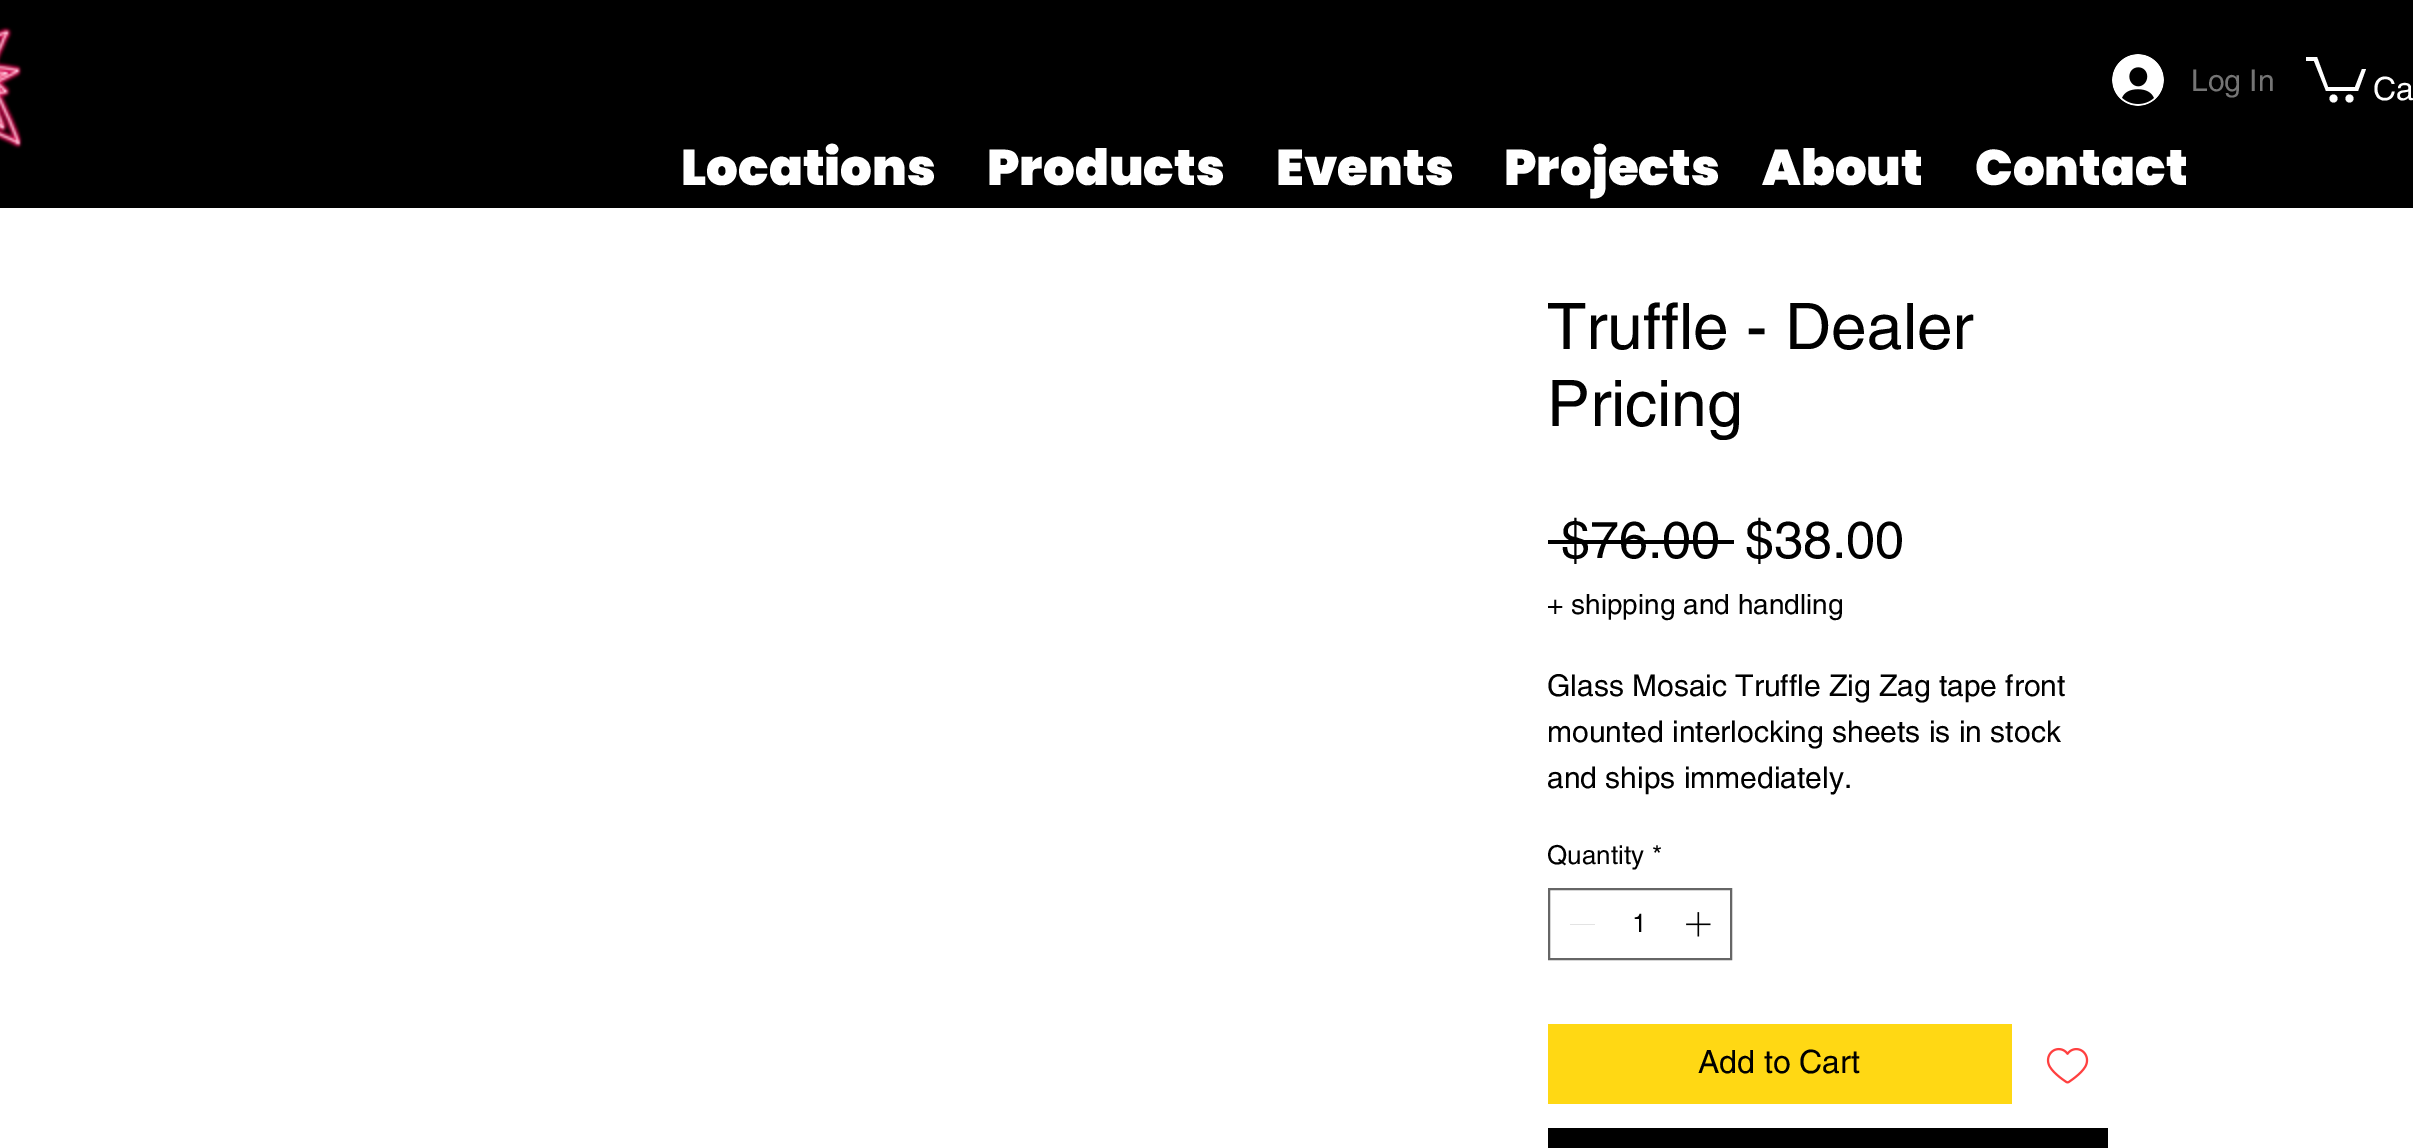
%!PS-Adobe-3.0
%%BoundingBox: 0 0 2413 1148
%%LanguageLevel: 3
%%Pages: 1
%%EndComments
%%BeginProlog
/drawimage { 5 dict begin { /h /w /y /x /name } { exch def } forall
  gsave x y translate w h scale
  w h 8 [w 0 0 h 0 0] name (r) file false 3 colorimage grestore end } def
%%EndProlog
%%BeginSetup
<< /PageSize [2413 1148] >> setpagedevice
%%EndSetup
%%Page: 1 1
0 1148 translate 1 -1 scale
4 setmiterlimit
1 setgray
0 0 2413 1148 rectfill
0 setgray
0 0 2413 208 rectfill
(images/1.raw) 0 26 23 123 drawimage
(images/2.raw) 2112 54 52 52 drawimage
1 setgray
newpath 2366 69 moveto 2358 91 lineto 2326 91 lineto 2314 61 lineto 2306 61 lineto 2306 57 lineto 2317 57 lineto 2328 87 lineto 2355 87 lineto 2362 69 lineto fill
newpath 2349.5 98.5 4 0 360 arc closepath fill
newpath 2333.5 98.5 4 0 360 arc closepath fill
0 setgray
1548 540 186 4 rectfill
0.4 setgray
2 setlinewidth
1549 889 182 70 rectstroke
0.89 setgray
1570 924 25 1 rectfill
(images/3.raw) 1686 912 25 25 drawimage
1 0.847 0.078 setrgbcolor
1548 1024 464 80 rectfill
(images/4.raw) 2046 1047 43 37 drawimage
0 setgray
1548 1128 560 20 rectfill
/helvetica-Regular [30 0 0 -30 0 0] selectfont
0.459 setgray
2191 91 moveto (Log In) show
/helvetica-Regular [32 0 0 -32 0 0] selectfont
1 setgray
2373 100 moveto (Ca) show
/Poppins-Black [50 0 0 -50 0 0] selectfont
681 185 moveto (Locations) show
987 185 moveto (Products) show
1276 185 moveto (Events) show
1504 185 moveto (Projects) show
1762 185 moveto (About) show
1975 185 moveto (Contact) show
/helvetica-Regular [64 0 0 -64 0 0] selectfont
0 setgray
1547 349 moveto (Truffle - Dealer) show
1547 426 moveto (Pricing) show
/helvetica-Regular [52 0 0 -52 0 0] selectfont
1561 558 moveto ($76.00) show
1745 558 moveto ($38.00) show
/helvetica-Regular [28 0 0 -28 0 0] selectfont
1547 614 moveto (+ shipping and handling) show
/helvetica-Regular [30 0 0 -30 0 0] selectfont
1547 696 moveto (Glass Mosaic Truffle Zig Zag tape front) show
1547 742 moveto (mounted interlocking sheets is in stock) show
1547 788 moveto (and ships immediately.) show
/helvetica-Regular [26 0 0 -26 0 0] selectfont
1547 864 moveto (Quantity) show
1652 864 moveto (*) show
1632 932 moveto (1) show
/helvetica-Regular [32 0 0 -32 0 0] selectfont
1698 1073 moveto (Add to Cart) show
showpage
%%EOF
